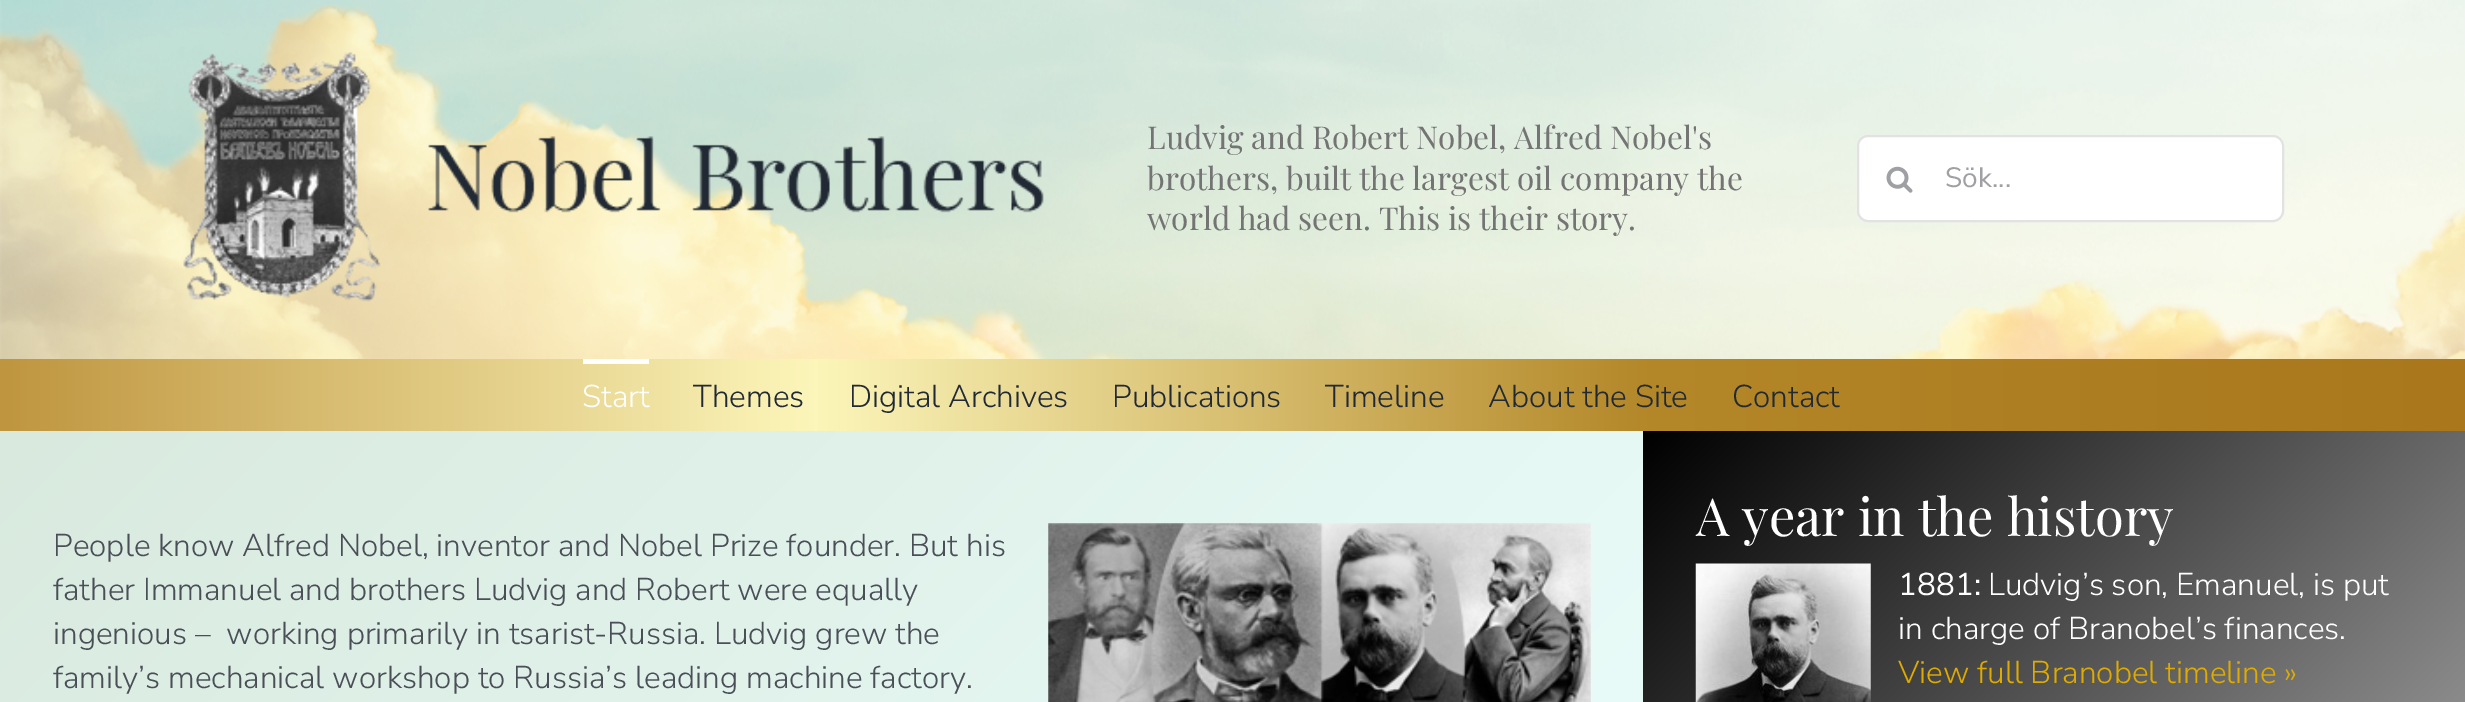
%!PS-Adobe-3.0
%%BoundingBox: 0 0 2465 702
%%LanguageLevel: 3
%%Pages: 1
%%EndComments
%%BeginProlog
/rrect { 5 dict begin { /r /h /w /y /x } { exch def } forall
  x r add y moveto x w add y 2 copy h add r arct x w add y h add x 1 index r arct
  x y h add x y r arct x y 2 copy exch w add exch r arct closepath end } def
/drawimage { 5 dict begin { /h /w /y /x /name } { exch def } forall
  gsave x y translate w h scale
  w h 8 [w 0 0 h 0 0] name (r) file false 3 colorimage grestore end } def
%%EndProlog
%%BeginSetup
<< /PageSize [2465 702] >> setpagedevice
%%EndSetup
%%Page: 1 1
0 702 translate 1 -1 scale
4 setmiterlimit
1 setgray
0 0 2465 702 rectfill
(images/1.raw) 0 0 2465 359 drawimage
(images/2.raw) 183 52 861 250 drawimage
1858 136 425 85 10 rrect gsave fill grestore
0.886 setgray
2 setlinewidth
stroke
(images/3.raw) 1886 166 27 27 drawimage
gsave newpath 0 359 moveto 2465 359 lineto 2465 431 lineto 0 431 lineto closepath clip newpath
<< /ShadingType 2 /ColorSpace /DeviceRGB /Coords [0 394 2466 394] /Extend [true true] /Function << /FunctionType 3 /Domain [0 1] /Functions [<< /FunctionType 2 /Domain [0 1] /C0 [0.749 0.584 0.247] /C1 [0.988 0.965 0.729] /N 1 >> << /FunctionType 2 /Domain [0 1] /C0 [0.988 0.965 0.729] /C1 [0.702 0.529 0.157] /N 1 >> << /FunctionType 2 /Domain [0 1] /C0 [0.702 0.529 0.157] /C1 [0.667 0.467 0.11] /N 1 >>] /Bounds [0.33 0.67] /Encode [0 1 0 1 0 1] >> >> shfill grestore
1 setgray
583 359 66 5 rectfill
gsave newpath 0 431 moveto 1643 431 lineto 1643 702 lineto 0 702 lineto closepath clip newpath
<< /ShadingType 2 /ColorSpace /DeviceRGB /Coords [236 194 1407 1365] /Extend [true true] /Function << /FunctionType 2 /Domain [0 1] /C0 [0.851 0.914 0.871] /C1 [0.929 1 0.996] /N 1 >> >> shfill grestore
(images/4.raw) 1048 523 543 179 drawimage
gsave newpath 1643 431 moveto 2465 431 lineto 2465 702 lineto 1643 702 lineto closepath clip newpath
<< /ShadingType 2 /ColorSpace /DeviceRGB /Coords [1674 399 2435 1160] /Extend [true true] /Function << /FunctionType 2 /Domain [0 1] /C0 [0 0 0] /C1 [0.757 0.757 0.757] /N 1 >> >> shfill grestore
(images/5.raw) 1695 563 176 139 drawimage
/PlayfairDisplay-Regular [31.5 0 0 -31.5 0 0] selectfont
0.455 setgray
1147 149 moveto (Ludvig and Robert Nobel, Alfred Nobel's) show
1147 190 moveto (brothers, built the largest oil company the) show
1147 230 moveto (world had seen. This is their story.) show
/NunitoSans-Regular [28 0 0 -28 0 0] selectfont
0.62 0.627 0.643 setrgbcolor
1945 187 moveto (Sök...) show
/NunitoSans-Light [31.5 0 0 -31.5 0 0] selectfont
1 setgray
582 407 moveto (Start) show
0.129 0.161 0.204 setrgbcolor
693 407 moveto (Themes) show
849 407 moveto (Digital Archives) show
1112 407 moveto (Publications) show
1325 407 moveto (Timeline) show
1488 407 moveto (About the Site) show
1732 407 moveto (Contact) show
0.29 0.306 0.341 setrgbcolor
53 556 moveto (People know Alfred Nobel, inventor and Nobel Prize founder. But his) show
53 600 moveto (father Immanuel and brothers Ludvig and Robert were equally) show
53 644 moveto (ingenious –  working primarily in tsarist-Russia. Ludvig grew the) show
53 688 moveto (family’s mechanical workshop to Russia’s leading machine factory.) show
/PlayfairDisplay-Regular [52.5 0 0 -52.5 0 0] selectfont
1 setgray
1696 536 moveto (A year in the history) show
/NunitoSans-Regular [31.5 0 0 -31.5 0 0] selectfont
1898 595 moveto (1881:) show
/NunitoSans-Light [31.5 0 0 -31.5 0 0] selectfont
1988 595 moveto (Ludvig’s son, Emanuel, is put) show
1898 639 moveto (in charge of Branobel’s finances.) show
0.875 0.671 0 setrgbcolor
1898 683 moveto (View full Branobel timeline ») show
showpage
%%EOF
